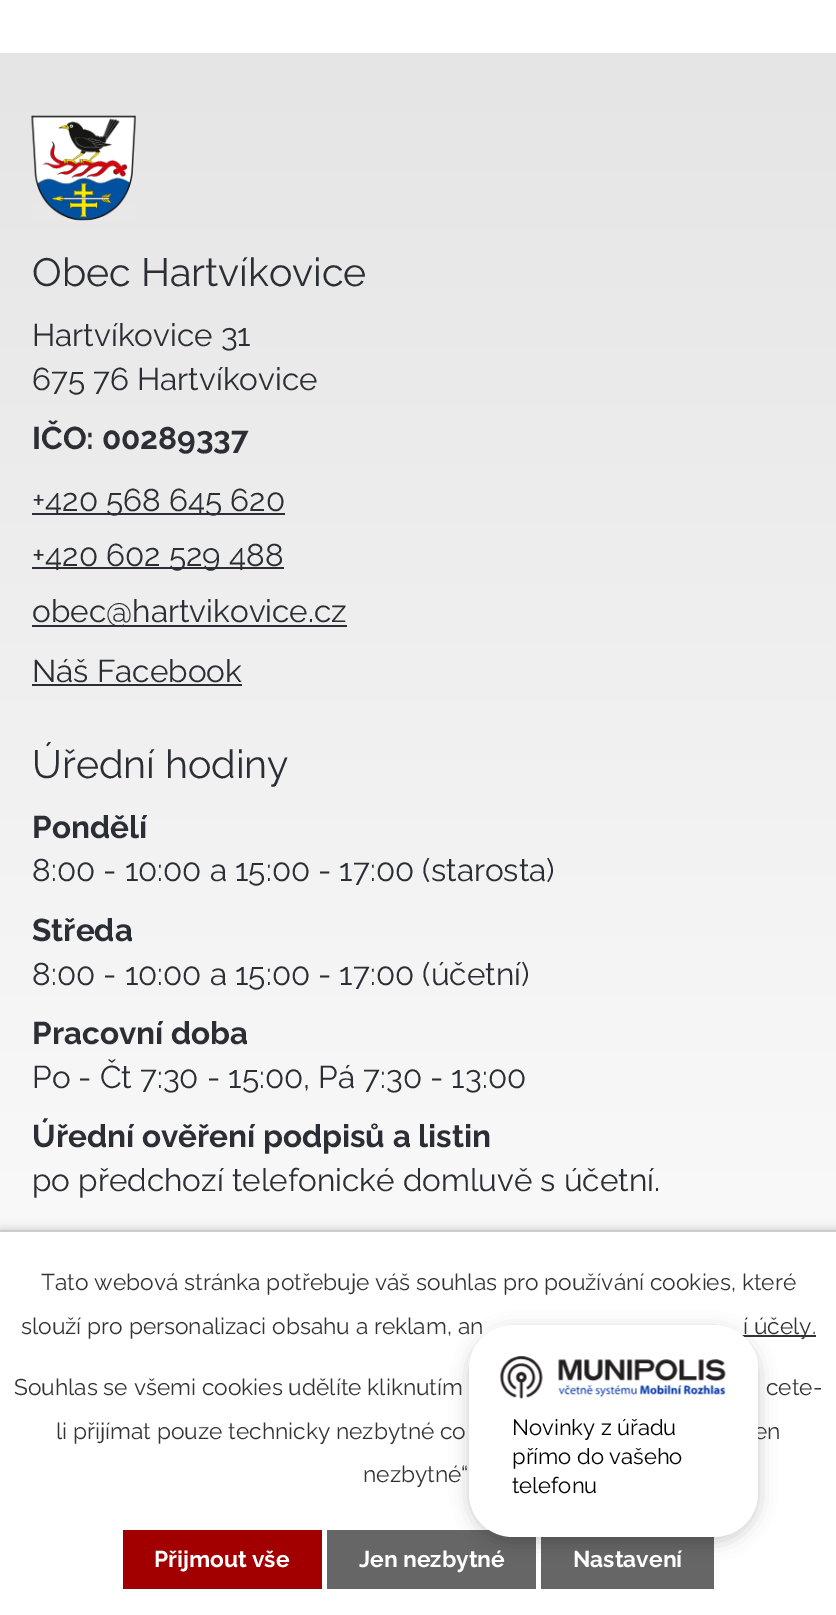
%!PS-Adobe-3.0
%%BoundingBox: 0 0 836 1615
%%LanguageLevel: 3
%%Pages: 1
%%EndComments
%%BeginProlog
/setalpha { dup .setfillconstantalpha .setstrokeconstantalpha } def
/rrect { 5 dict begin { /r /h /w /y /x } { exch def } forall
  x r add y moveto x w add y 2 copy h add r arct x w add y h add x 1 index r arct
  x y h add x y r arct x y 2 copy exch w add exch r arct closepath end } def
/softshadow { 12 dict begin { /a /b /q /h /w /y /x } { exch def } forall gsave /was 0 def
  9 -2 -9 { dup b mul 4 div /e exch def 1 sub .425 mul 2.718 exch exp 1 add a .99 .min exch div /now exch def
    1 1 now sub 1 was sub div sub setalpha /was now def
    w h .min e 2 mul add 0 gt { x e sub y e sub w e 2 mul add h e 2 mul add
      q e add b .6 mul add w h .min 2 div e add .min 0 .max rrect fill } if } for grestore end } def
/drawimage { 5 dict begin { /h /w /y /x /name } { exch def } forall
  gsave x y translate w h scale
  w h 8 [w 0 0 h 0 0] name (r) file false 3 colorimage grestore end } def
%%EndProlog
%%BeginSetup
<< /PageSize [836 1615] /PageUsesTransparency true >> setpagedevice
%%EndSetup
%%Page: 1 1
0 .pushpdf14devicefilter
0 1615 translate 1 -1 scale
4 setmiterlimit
1 setgray
0 0 836 1615 rectfill
gsave newpath 0 53 moveto 836 53 lineto 836 1230 lineto 0 1230 lineto closepath clip newpath
<< /ShadingType 2 /ColorSpace /DeviceRGB /Coords [418 52 418 1615] /Extend [true true] /Function << /FunctionType 2 /Domain [0 1] /C0 [0.898 0.898 0.898] /C1 [1 1 1] /N 1 >> >> shfill grestore
(images/1.raw) 31 115 105 106 drawimage
0.169 0.18 0.204 setrgbcolor
32 513 253 2 rectfill
32 567 252 2 rectfill
32 625 315 2 rectfill
32 684 210 2 rectfill
0 setgray
0 1230 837 385 0 4.5 0.2 softshadow
1 setgray
0 1232 836 383 rectfill
0.8 setgray
0 1230 836 2 rectfill
0.2 setgray
742 1335 74 2 rectfill
0.635 0 0 setrgbcolor
123 1530 199 59 rectfill
0.4 setgray
327 1530 209 59 rectfill
541 1537 173 52 rectfill
0 setgray
469 1330 289 212 44 9 0.2 softshadow
/Raleway-Regular [39.4 0 0 -39.4 0 0] selectfont
0.169 0.18 0.204 setrgbcolor
32 286 moveto (Obec Hartvíkovice) show
/Raleway-Regular [31.5 0 0 -31.5 0 0] selectfont
32 346 moveto (Hartvíkovice 31) show
32 390 moveto (675 76 Hartvíkovice) show
/Raleway-Bold [31.5 0 0 -31.5 0 0] selectfont
32 449 moveto (IČO: 00289337) show
/Raleway-Regular [31.5 0 0 -31.5 0 0] selectfont
32 511 moveto (+420 568 645 620) show
32 566 moveto (+420 602 529 488) show
32 622 moveto (obec@hartvikovice.cz) show
32 682 moveto (Náš Facebook) show
/Raleway-Regular [39.4 0 0 -39.4 0 0] selectfont
32 778 moveto (Úřední hodiny) show
/Raleway-Bold [31.5 0 0 -31.5 0 0] selectfont
32 838 moveto (Pondělí) show
/Raleway-Regular [31.5 0 0 -31.5 0 0] selectfont
32 881 moveto (8:00 - 10:00 a 15:00 - 17:00 \(starosta\)) show
/Raleway-Bold [31.5 0 0 -31.5 0 0] selectfont
32 941 moveto (Středa) show
/Raleway-Regular [31.5 0 0 -31.5 0 0] selectfont
32 985 moveto (8:00 - 10:00 a 15:00 - 17:00 \(účetní\)) show
/Raleway-Bold [31.5 0 0 -31.5 0 0] selectfont
32 1044 moveto (Pracovní doba) show
/Raleway-Regular [31.5 0 0 -31.5 0 0] selectfont
32 1088 moveto (Po - Čt 7:30 - 15:00, Pá 7:30 - 13:00) show
/Raleway-Bold [31.5 0 0 -31.5 0 0] selectfont
32 1147 moveto (Úřední ověření podpisů a listin) show
/Raleway-Regular [31.5 0 0 -31.5 0 0] selectfont
32 1191 moveto (po předchozí telefonické domluvě s účetní.) show
/Raleway-Regular [22.75 0 0 -22.75 0 0] selectfont
0.2 setgray
41 1290 moveto (Tato webová stránka potřebuje váš souhlas pro používání cookies, které) show
21 1334 moveto (slouží pro personalizaci obsahu a reklam, an) show
743 1334 moveto (í účely.) show
14 1395 moveto (Souhlas se všemi cookies udělíte kliknutím) show
766 1395 moveto (cete-) show
56 1439 moveto (li přijímat pouze technicky nezbytné co) show
754 1439 moveto (en) show
363 1482 moveto (nezbytné“) show
/Raleway-Bold [22.75 0 0 -22.75 0 0] selectfont
1 setgray
154 1567 moveto (Přijmout vše) show
359 1567 moveto (Jen nezbytné) show
573 1567 moveto (Nastavení) show
469 1325 289 212 44 rrect fill
(images/2.raw) 500 1356 226 43 drawimage
/Raleway-Regular [22 0 0 -22 0 0] selectfont
0 setgray
512 1435 moveto (Novinky z úřadu) show
512 1464 moveto (přímo do vašeho) show
512 1493 moveto (telefonu) show
.poppdf14devicefilter showpage
%%EOF
